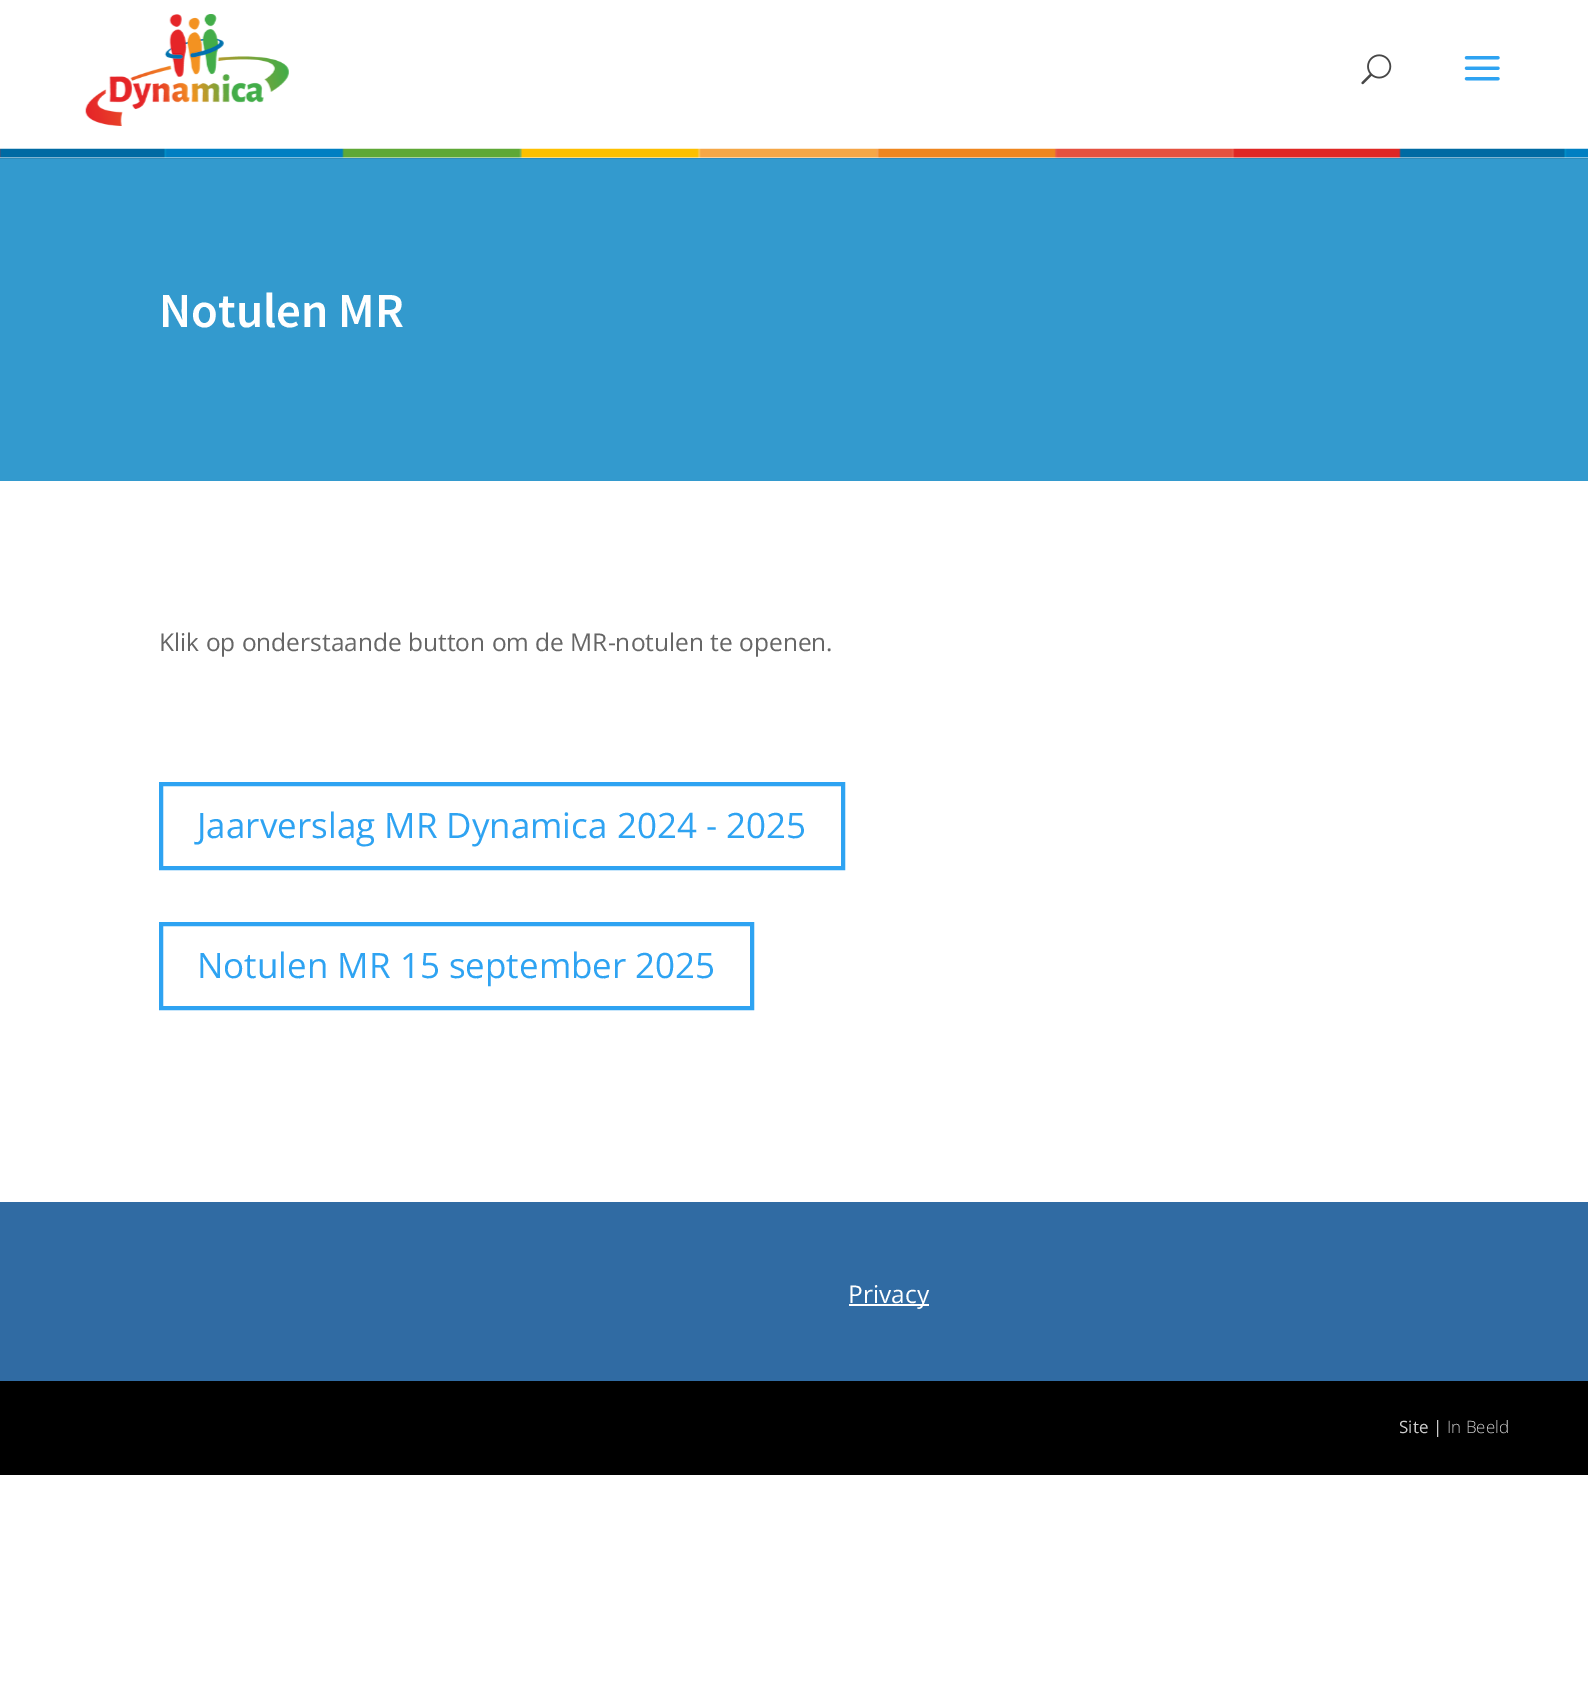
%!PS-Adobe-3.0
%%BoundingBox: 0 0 1588 1690
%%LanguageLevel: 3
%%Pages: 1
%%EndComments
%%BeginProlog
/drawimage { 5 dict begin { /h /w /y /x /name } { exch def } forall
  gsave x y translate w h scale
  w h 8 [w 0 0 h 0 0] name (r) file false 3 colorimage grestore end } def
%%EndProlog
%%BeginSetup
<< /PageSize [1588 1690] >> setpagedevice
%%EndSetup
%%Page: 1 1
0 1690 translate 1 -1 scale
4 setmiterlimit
1 setgray
0 0 1588 1690 rectfill
0.18 0.545 0.725 setrgbcolor
0 158 1588 1 rectfill
(images/1.raw) 0 148 1588 10 drawimage
(images/2.raw) 85 14 204 112 drawimage
(images/3.raw) 1361 54 31 31 drawimage
(images/4.raw) 1464 56 36 25 drawimage
0.2 0.604 0.808 setrgbcolor
0 159 1588 322 rectfill
0.18 0.639 0.949 setrgbcolor
4 setlinewidth
161 784 682 84 rectstroke
161 924 591 84 rectstroke
0.188 0.42 0.639 setrgbcolor
0 1202 1588 179 rectfill
1 setgray
849 1304 80 2 rectfill
0 setgray
0 1381 1588 94 rectfill
/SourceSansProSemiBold-SemiBold [49 0 0 -49 0 0] selectfont
1 setgray
159 327 moveto (Notulen MR) show
/OpenSans-Regular [24.5 0 0 -24.5 0 0] selectfont
0.4 setgray
159 651 moveto (Klik op onderstaande button om de MR-notulen te openen.) show
/OpenSans-Regular [35 0 0 -35 0 0] selectfont
0.18 0.639 0.949 setrgbcolor
197 838 moveto (Jaarverslag MR Dynamica 2024 - 2025) show
197 978 moveto (Notulen MR 15 september 2025) show
/OpenSans-Regular [24.5 0 0 -24.5 0 0] selectfont
1 setgray
848 1303 moveto (Privacy) show
/OpenSans-Regular [17 0 0 -17 0 0] selectfont
0.8 setgray
1399 1433 moveto (Site |) show
/OpenSans-Light [17 0 0 -17 0 0] selectfont
1447 1433 moveto (In Beeld) show
showpage
%%EOF
